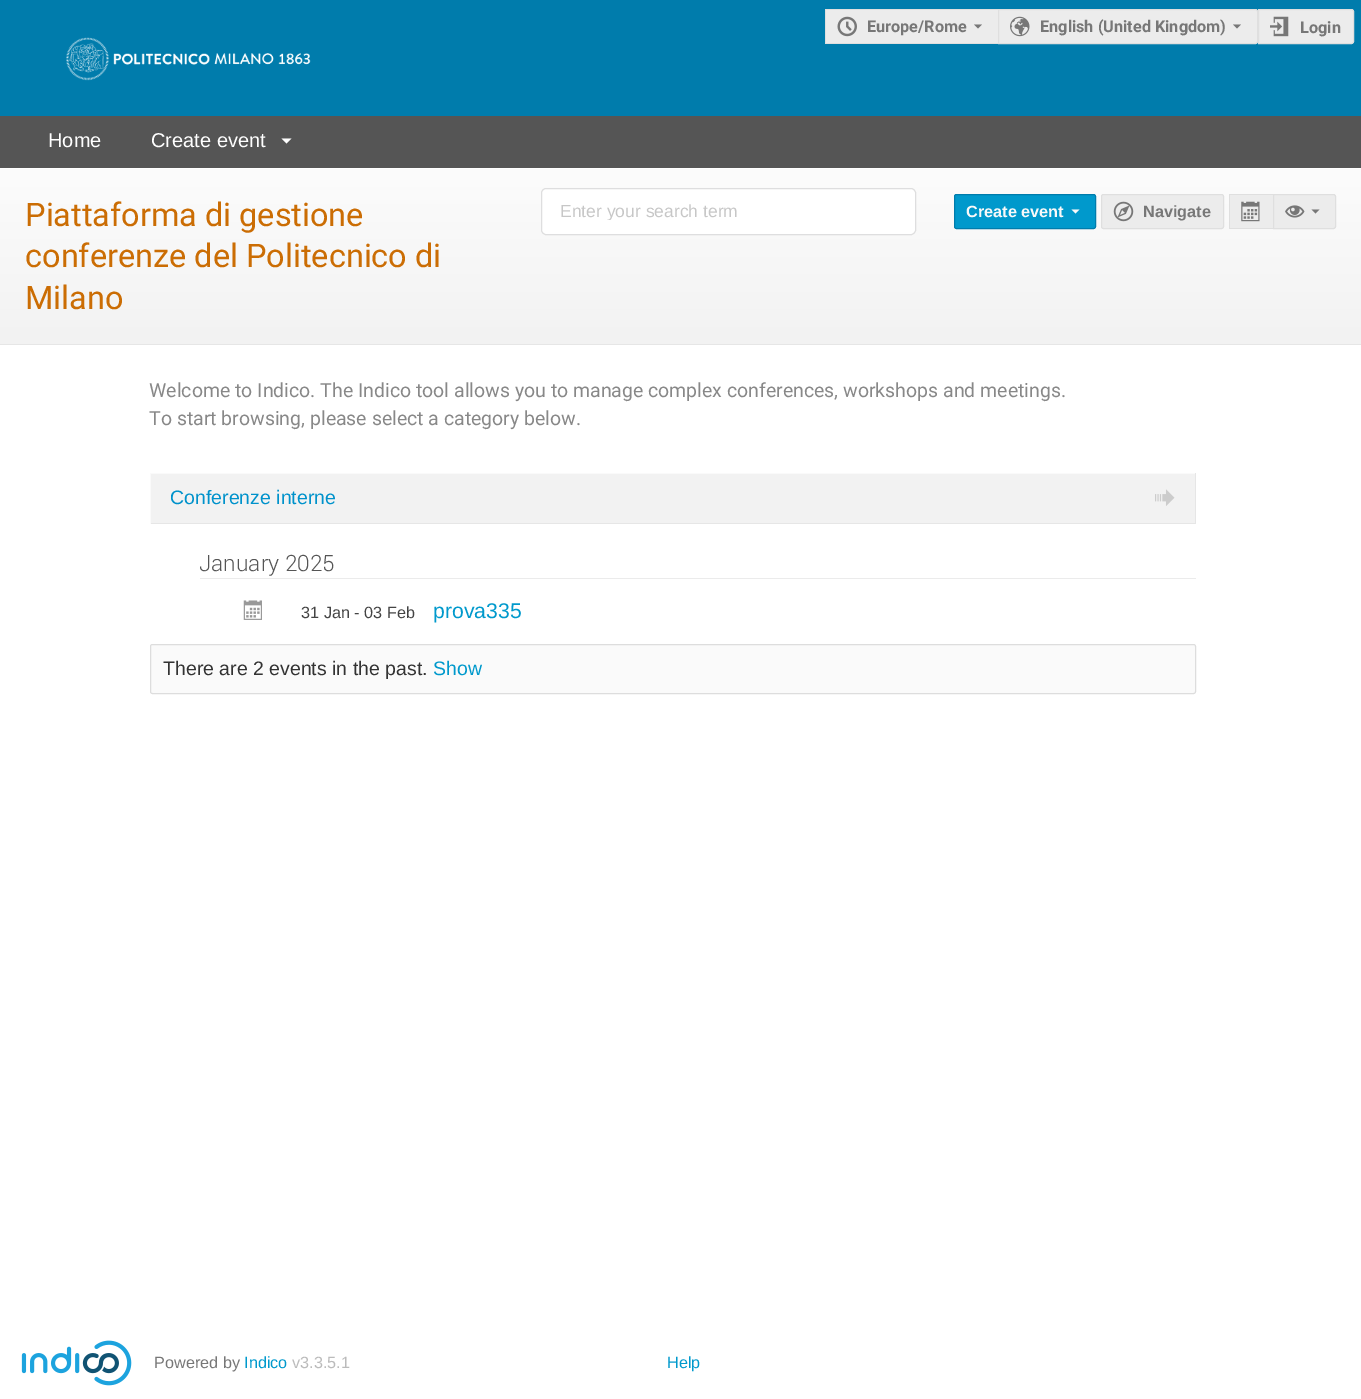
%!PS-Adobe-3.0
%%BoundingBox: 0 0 1361 1399
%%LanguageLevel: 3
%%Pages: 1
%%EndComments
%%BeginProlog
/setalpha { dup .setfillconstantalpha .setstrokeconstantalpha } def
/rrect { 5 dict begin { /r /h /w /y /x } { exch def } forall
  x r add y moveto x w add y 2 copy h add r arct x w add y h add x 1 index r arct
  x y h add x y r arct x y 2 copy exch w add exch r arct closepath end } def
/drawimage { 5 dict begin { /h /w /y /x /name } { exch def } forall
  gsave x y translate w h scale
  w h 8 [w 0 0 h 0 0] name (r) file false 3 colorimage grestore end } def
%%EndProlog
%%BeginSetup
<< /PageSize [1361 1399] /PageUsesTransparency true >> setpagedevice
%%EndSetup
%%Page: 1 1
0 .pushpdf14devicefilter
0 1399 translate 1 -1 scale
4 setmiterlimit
1 setgray
0 0 1361 1399 rectfill
0 0.486 0.675 setrgbcolor
0 0 1361 116 rectfill
0.925 setgray
826 10 172 33 rectfill
0.875 setgray
825 9 173 1 rectfill
825 43 173 1 rectfill
825 9 1 35 rectfill
(images/1.raw) 837 16 20 21 drawimage
0.467 setgray
newpath 974 24.5 moveto 978 28.5 lineto 982 24.5 lineto closepath fill
0.925 setgray
newpath 998.5 9.5 moveto 1255.5 9.5 lineto 1256.5 9.5 1257.5 10.5 1257.5 11.5 curveto 1257.5 41.5 lineto 1257.5 42.5 1256.5 43.5 1255.5 43.5 curveto 998.5 43.5 lineto closepath gsave fill grestore
0.875 setgray
stroke
(images/2.raw) 1010 16 20 21 drawimage
0.467 setgray
newpath 1233 24.5 moveto 1237 28.5 lineto 1241 24.5 lineto closepath fill
0.925 setgray
newpath 1258.5 9.5 moveto 1351.5 9.5 lineto 1352.5 9.5 1353.5 10.5 1353.5 11.5 curveto 1353.5 41.5 lineto 1353.5 42.5 1352.5 43.5 1351.5 43.5 curveto 1258.5 43.5 lineto closepath gsave fill grestore
0.875 setgray
stroke
(images/3.raw) 1270 16 19 21 drawimage
(images/4.raw) 66 37 245 44 drawimage
0.333 setgray
0 116 1361 52 rectfill
1 setgray
newpath 281.5 138.5 moveto 286.5 143.5 lineto 291.5 138.5 lineto closepath fill
gsave newpath 0 169 moveto 1361 169 lineto 1361 344 lineto 0 344 lineto closepath clip newpath
<< /ShadingType 2 /ColorSpace /DeviceRGB /Coords [681 169 681 344] /Extend [true true] /Function << /FunctionType 2 /Domain [0 1] /C0 [0.988 0.988 0.988] /C1 [0.949 0.949 0.949] /N 1 >> >> shfill grestore
0.902 setgray
0 344 1361 1 rectfill
1 setgray
541 188 375 47 5 rrect fill
0.15 setalpha
0.133 0.141 0.149 setrgbcolor
541.5 188.5 374 46 4.5 rrect stroke
1 setalpha
0 0.6 0.8 setrgbcolor
954.5 194.5 141 34 2 rrect gsave fill grestore
0 0.486 0.675 setrgbcolor
stroke
0.976 setgray
newpath 1071.5 209.5 moveto 1075.5 213.5 lineto 1079.5 209.5 lineto closepath fill
0.925 setgray
1101.5 194.5 122 34 2 rrect gsave fill grestore
0.875 setgray
stroke
(images/5.raw) 1113 201 21 21 drawimage
0.925 setgray
1230 195 43 33 rectfill
0.875 setgray
1229 194 44 1 rectfill
1229 228 44 1 rectfill
1229 194 1 35 rectfill
(images/6.raw) 1241 201 19 21 drawimage
0.925 setgray
newpath 1273.5 194.5 moveto 1333.5 194.5 lineto 1334.5 194.5 1335.5 195.5 1335.5 196.5 curveto 1335.5 226.5 lineto 1335.5 227.5 1334.5 228.5 1333.5 228.5 curveto 1273.5 228.5 lineto closepath gsave fill grestore
0.875 setgray
stroke
(images/7.raw) 1285 205 20 13 drawimage
0.467 setgray
newpath 1311.5 209.5 moveto 1315.5 213.5 lineto 1319.5 209.5 lineto closepath fill
0.902 setgray
1195 473 1 51 rectfill
0.98 setgray
150 473 1 51 rectfill
0.949 setgray
151 474 1044 49 rectfill
0.98 setgray
151 473 1044 1 rectfill
0.902 setgray
151 523 1044 1 rectfill
(images/8.raw) 1155 489 20 17 drawimage
0.922 setgray
200 578 996 1 rectfill
(images/9.raw) 243 600 19 20 drawimage
0.98 setgray
150.5 644.5 1045 49 2 rrect gsave fill grestore
0.867 setgray
stroke
(images/10.raw) 21 1340 111 46 drawimage
/Roboto-Bold [16.25 0 0 -16.25 0 0] selectfont
0.467 setgray
867 32 moveto (Europe/Rome) show
1040 32 moveto (English \(United Kingdom\)) show
1300 33 moveto (Login) show
/LiberationSans-Regular [20 0 0 -20 0 0] selectfont
1 setgray
48 147 moveto (Home) show
151 147 moveto (Create event) show
/Roboto-Regular [32.5 0 0 -32.5 0 0] selectfont
0.796 0.427 0.016 setrgbcolor
25 226 moveto (Piattaforma di gestione) show
25 267 moveto (conferenze del Politecnico di) show
25 309 moveto (Milano) show
gsave
560 200 308 20 rectclip
/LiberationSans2-Regular [17.5 0 0 -17.5 0 0] selectfont
0.78 setgray
560 217 moveto (Enter your search term) show
grestore
/LiberationSans-Bold [16.25 0 0 -16.25 0 0] selectfont
0.976 setgray
966 217 moveto (Create event) show
0.467 setgray
1143 217 moveto (Navigate) show
/Roboto-Regular [19.5 0 0 -19.5 0 0] selectfont
0.533 setgray
149 397 moveto (Welcome to Indico. The Indico tool allows you to manage complex conferences, workshops and meetings.) show
149 425 moveto (To start browsing, please select a category below.) show
/LiberationSans2-Regular [19.5 0 0 -19.5 0 0] selectfont
0 0.573 0.796 setrgbcolor
170 504 moveto (Conferenze interne) show
/Roboto-Light [22.5 0 0 -22.5 0 0] selectfont
0.333 setgray
199 571 moveto (January 2025) show
/LiberationSans2-Regular [16.25 0 0 -16.25 0 0] selectfont
0.267 setgray
301 618 moveto (31 Jan - 03 Feb) show
/LiberationSans2-Regular [21.25 0 0 -21.25 0 0] selectfont
0 0.6 0.8 setrgbcolor
433 618 moveto (prova335) show
/LiberationSans2-Regular [19.5 0 0 -19.5 0 0] selectfont
0.2 setgray
163 675 moveto (There are 2 events in the past.) show
0 0.6 0.8 setrgbcolor
433 675 moveto (Show) show
/LiberationSans-Regular [16.25 0 0 -16.25 0 0] selectfont
0.467 setgray
154 1368 moveto (Powered by) show
0 0.6 0.8 setrgbcolor
244 1368 moveto (Indico) show
0.733 setgray
292 1368 moveto (v3.3.5.1) show
0 0.6 0.8 setrgbcolor
667 1368 moveto (Help) show
.poppdf14devicefilter showpage
%%EOF
